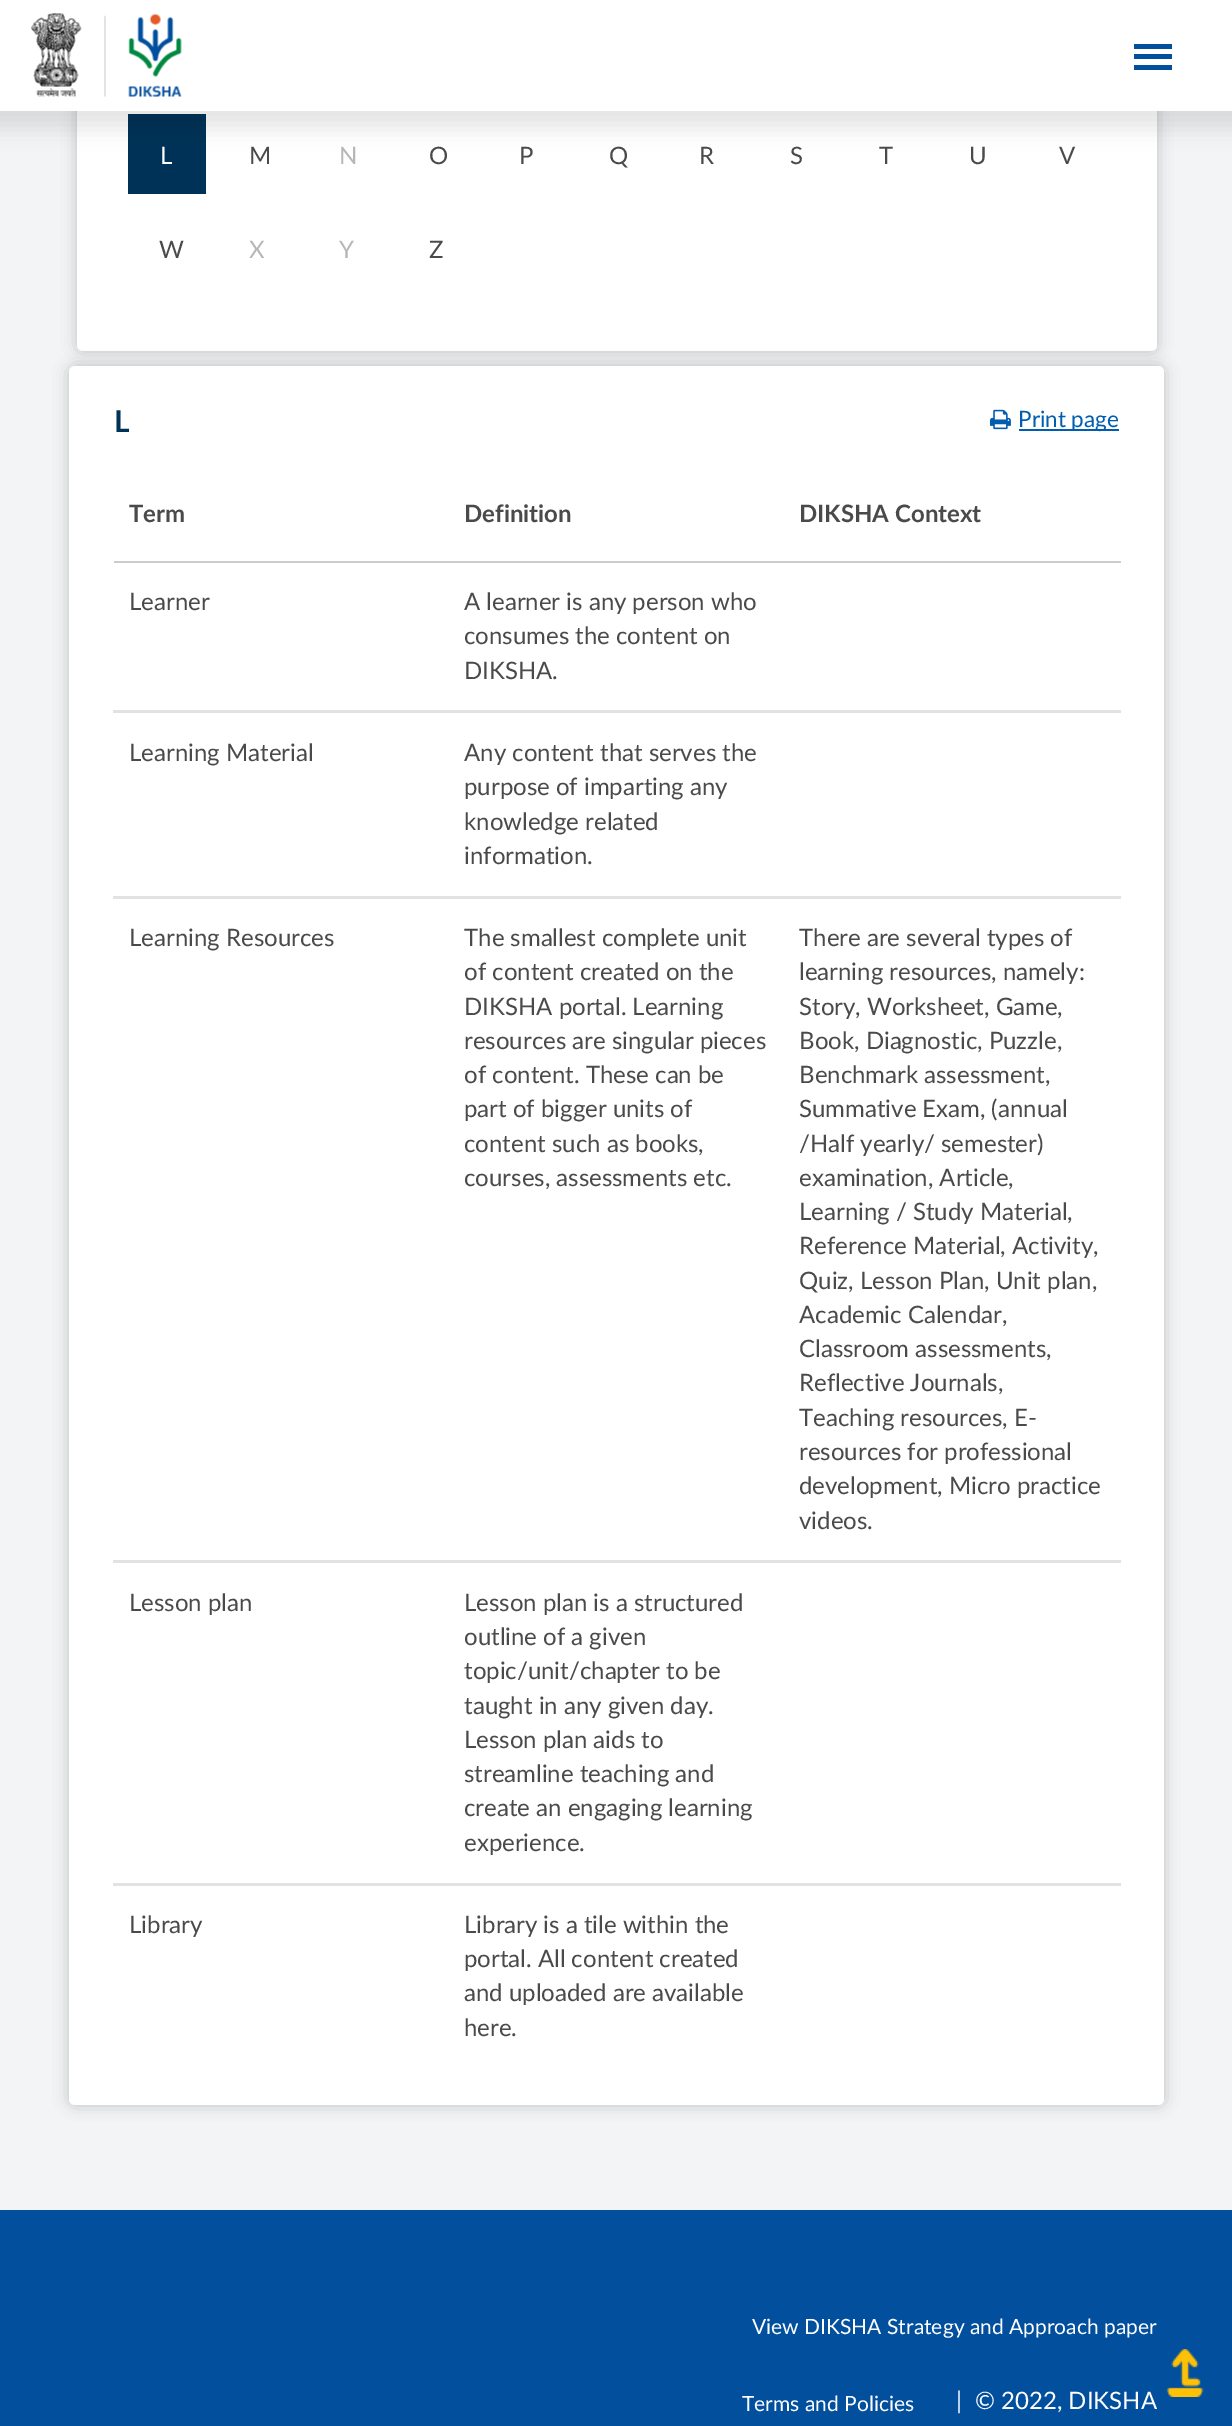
%!PS-Adobe-3.0
%%BoundingBox: 0 0 1232 2426
%%LanguageLevel: 3
%%Pages: 1
%%EndComments
%%BeginProlog
/setalpha { dup .setfillconstantalpha .setstrokeconstantalpha } def
/rrect { 5 dict begin { /r /h /w /y /x } { exch def } forall
  x r add y moveto x w add y 2 copy h add r arct x w add y h add x 1 index r arct
  x y h add x y r arct x y 2 copy exch w add exch r arct closepath end } def
/softshadow { 12 dict begin { /a /b /q /h /w /y /x } { exch def } forall gsave /was 0 def
  9 -2 -9 { dup b mul 4 div /e exch def 1 sub .425 mul 2.718 exch exp 1 add a .99 .min exch div /now exch def
    1 1 now sub 1 was sub div sub setalpha /was now def
    w h .min e 2 mul add 0 gt { x e sub y e sub w e 2 mul add h e 2 mul add
      q e add b .6 mul add w h .min 2 div e add .min 0 .max rrect fill } if } for grestore end } def
/drawimage { 5 dict begin { /h /w /y /x /name } { exch def } forall
  gsave x y translate w h scale
  w h 8 [w 0 0 h 0 0] name (r) file false 3 colorimage grestore end } def
%%EndProlog
%%BeginSetup
<< /PageSize [1232 2426] /PageUsesTransparency true >> setpagedevice
%%EndSetup
%%Page: 1 1
0 .pushpdf14devicefilter
0 2426 translate 1 -1 scale
4 setmiterlimit
0.949 0.957 0.961 setrgbcolor
0 0 1232 2426 rectfill
0 setgray
77 -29 1080 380 6 7.5 0.1 softshadow
77 -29 1080 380 6 7.5 0.1 softshadow
1 setgray
77 -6 1080 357 6 rrect fill
0 0.196 0.341 setrgbcolor
128 114 78 80 rectfill
0 setgray
-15 -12 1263 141 0 10.5 0.1 softshadow
1 setgray
0 0 1232 111 rectfill
(images/1.raw) 31 13 151 84 drawimage
0.008 0.31 0.616 setrgbcolor
1134 44 38 5 rectfill
1134 54 38 5 rectfill
1134 65 38 5 rectfill
0 setgray
69 366 1095 1739 6 7.5 0.1 softshadow
69 366 1095 1739 6 7.5 0.1 softshadow
1 setgray
69 366 1095 1739 6 rrect fill
0.8 setgray
114 561 1007 2 rectfill
0.886 setgray
113 710 1008 3 rectfill
113 896 1008 3 rectfill
113 1560 1008 3 rectfill
113 1883 1008 3 rectfill
(images/2.raw) 990 409 21 21 drawimage
0 0.365 0.69 setrgbcolor
1019 429 100 2 rectfill
0.008 0.31 0.616 setrgbcolor
0 2210 1232 216 rectfill
(images/3.raw) 1166 2349 38 48 drawimage
/Lato-Regular [24 0 0 -24 0 0] selectfont
1 setgray
160 164 moveto (L) show
0.29 setgray
249 164 moveto (M) show
0.718 setgray
339 164 moveto (N) show
0.29 setgray
429 164 moveto (O) show
519 164 moveto (P) show
609 164 moveto (Q) show
699 164 moveto (R) show
790 164 moveto (S) show
879 164 moveto (T) show
969 164 moveto (U) show
1059 164 moveto (V) show
159 258 moveto (W) show
0.718 setgray
249 258 moveto (X) show
339 258 moveto (Y) show
0.29 setgray
429 258 moveto (Z) show
/Lato-Bold [30 0 0 -30 0 0] selectfont
0 0.196 0.341 setrgbcolor
114 432 moveto (L) show
/Lato-Bold [24 0 0 -24 0 0] selectfont
0.29 setgray
129 522 moveto (Term) show
464 522 moveto (Definition) show
799 522 moveto (DIKSHA Context) show
/Lato-Regular [24 0 0 -24 0 0] selectfont
129 610 moveto (Learner) show
464 610 moveto (A learner is any person who) show
464 644 moveto (consumes the content on) show
464 679 moveto (DIKSHA.) show
129 761 moveto (Learning Material) show
464 761 moveto (Any content that serves the) show
464 795 moveto (purpose of imparting any) show
464 830 moveto (knowledge related) show
464 864 moveto (information.) show
129 946 moveto (Learning Resources) show
464 946 moveto (The smallest complete unit) show
464 980 moveto (of content created on the) show
464 1015 moveto (DIKSHA portal. Learning) show
464 1049 moveto (resources are singular pieces) show
464 1083 moveto (of content. These can be) show
464 1117 moveto (part of bigger units of) show
464 1152 moveto (content such as books,) show
464 1186 moveto (courses, assessments etc.) show
799 946 moveto (There are several types of) show
799 980 moveto (learning resources, namely:) show
799 1015 moveto (Story, Worksheet, Game,) show
799 1049 moveto (Book, Diagnostic, Puzzle,) show
799 1083 moveto (Benchmark assessment,) show
799 1117 moveto (Summative Exam, \(annual) show
799 1152 moveto (/Half yearly/ semester\)) show
799 1186 moveto (examination, Article,) show
799 1220 moveto (Learning / Study Material,) show
799 1254 moveto (Reference Material, Activity,) show
799 1289 moveto (Quiz, Lesson Plan, Unit plan,) show
799 1323 moveto (Academic Calendar,) show
799 1357 moveto (Classroom assessments,) show
799 1391 moveto (Reflective Journals,) show
799 1426 moveto (Teaching resources, E-) show
799 1460 moveto (resources for professional) show
799 1494 moveto (development, Micro practice) show
799 1529 moveto (videos.) show
129 1611 moveto (Lesson plan) show
464 1611 moveto (Lesson plan is a structured) show
464 1645 moveto (outline of a given) show
464 1679 moveto (topic/unit/chapter to be) show
464 1714 moveto (taught in any given day.) show
464 1748 moveto (Lesson plan aids to) show
464 1782 moveto (streamline teaching and) show
464 1816 moveto (create an engaging learning) show
464 1851 moveto (experience.) show
129 1933 moveto (Library) show
464 1933 moveto (Library is a tile within the) show
464 1967 moveto (portal. All content created) show
464 2001 moveto (and uploaded are available) show
464 2036 moveto (here.) show
/Lato-Regular [22.5 0 0 -22.5 0 0] selectfont
0 0.365 0.69 setrgbcolor
1018 427 moveto (Print page) show
/Lato-Regular [21 0 0 -21 0 0] selectfont
1 setgray
752 2334 moveto (View DIKSHA Strategy and Approach paper) show
742 2411 moveto (Terms and Policies) show
/Lato-Regular [24 0 0 -24 0 0] selectfont
956 2409 moveto (|) show
975 2409 moveto (© 2022, DIKSHA) show
.poppdf14devicefilter showpage
%%EOF
